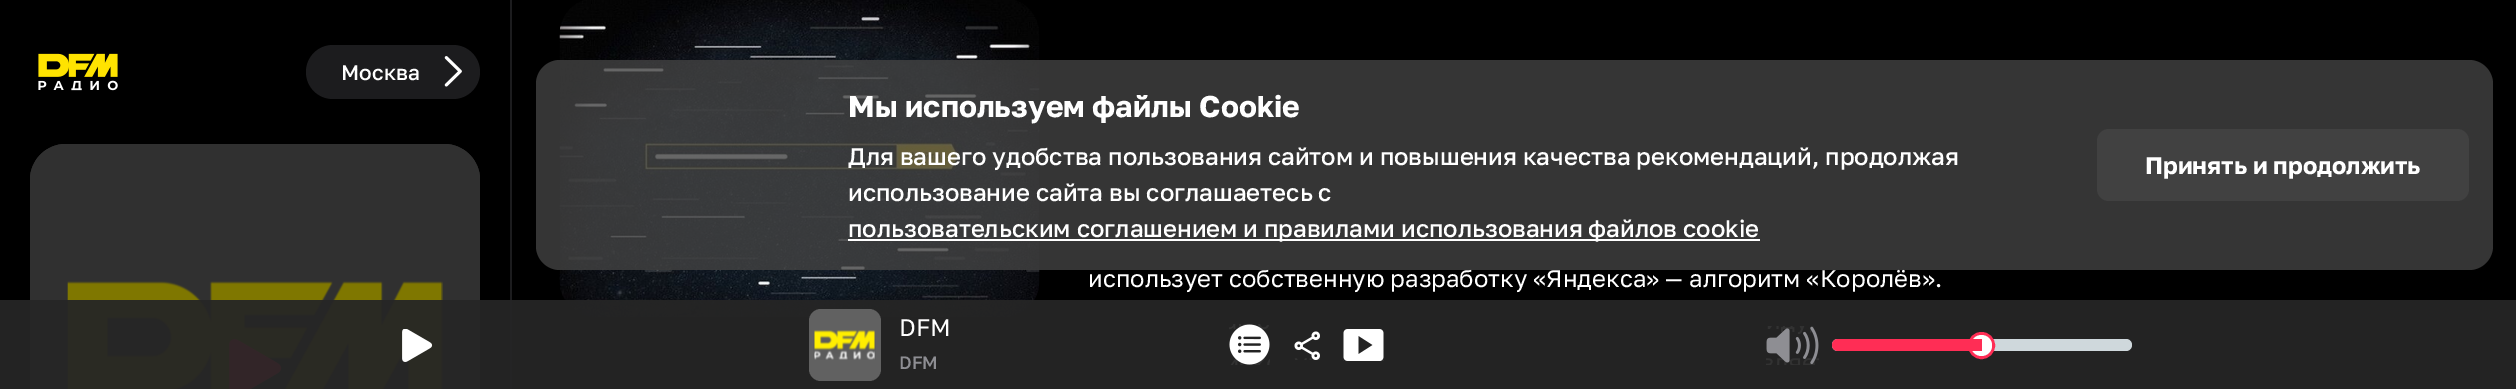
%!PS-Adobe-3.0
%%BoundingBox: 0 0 2516 389
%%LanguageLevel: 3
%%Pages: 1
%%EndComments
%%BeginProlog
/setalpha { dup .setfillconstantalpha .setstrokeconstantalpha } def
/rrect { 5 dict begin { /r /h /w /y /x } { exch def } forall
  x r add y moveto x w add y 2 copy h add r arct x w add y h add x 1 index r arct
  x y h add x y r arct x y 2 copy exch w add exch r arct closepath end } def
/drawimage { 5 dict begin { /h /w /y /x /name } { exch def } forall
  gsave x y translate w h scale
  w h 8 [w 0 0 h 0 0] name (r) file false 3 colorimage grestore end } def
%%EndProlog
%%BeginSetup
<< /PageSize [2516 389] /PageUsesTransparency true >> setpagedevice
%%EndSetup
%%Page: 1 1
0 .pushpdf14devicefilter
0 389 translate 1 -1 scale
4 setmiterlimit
0 setgray
0 0 2516 389 rectfill
0.11 0.11 0.118 setrgbcolor
510 0 2 389 rectfill
(images/1.raw) 38 53 80 38 drawimage
306 45 174 54 27 rrect fill
(images/2.raw) 444 56 18 31 drawimage
0.38 setgray
30 144 450 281 36 rrect fill
(images/3.raw) 67 281 376 108 drawimage
0.5 setalpha
0 setgray
30 144 450 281 36 rrect fill
1 setalpha
(images/4.raw) 229 339 53 50 drawimage
(images/5.raw) 559 0 481 318 drawimage
0.94 setalpha
0.145 setgray
0 300 2516 89 rectfill
1 setalpha
(images/6.raw) 402 329 31 33 drawimage
0.38 setgray
809 309 72 72 12 rrect fill
(images/7.raw) 813 330 63 30 drawimage
(images/8.raw) 1229 324 41 41 drawimage
(images/9.raw) 1294 331 26 29 drawimage
(images/10.raw) 1343 329 41 32 drawimage
(images/11.raw) 1766 326 53 39 drawimage
0.812 0.847 0.863 setrgbcolor
1832 339 300 12 6 rrect fill
1 0.176 0.333 setrgbcolor
3 setlinewidth
newpath 1981.5 345.5 12 0 360 arc closepath stroke
1 setgray
newpath 1981.5 345.5 10.5 0 360 arc closepath fill
1 0.176 0.333 setrgbcolor
newpath 1838 339 moveto 1982 339 lineto 1982 351 lineto 1838 351 lineto 1834.5 351 1832 348.5 1832 345 curveto 1832 341.5 1834.5 339 1838 339 curveto closepath fill
/GolosText-Medium [21 0 0 -21 0 0] selectfont
1 setgray
341 80 moveto (Москва) show
/GolosText-Regular [24 0 0 -24 0 0] selectfont
1088 287 moveto (использует собственную разработку «Яндекса» — алгоритм «Королёв».) show
0.8 setalpha
0.259 setgray
536 60 1957 210 24 rrect fill
1 setalpha
0.255 setgray
2097 129 372 72 12 rrect fill
/GolosText-Bold [24 0 0 -24 0 0] selectfont
1 setgray
2145 174 moveto (Принять и продолжить) show
848 239 912 2 rectfill
/GolosText-Medium [24 0 0 -24 0 0] selectfont
848 237 moveto (пользовательским соглашением и правилами использования файлов cookie) show
848 201 moveto (использование сайта вы соглашаетесь c) show
848 165 moveto (Для вашего удобства пользования сайтом и повышения качества рекомендаций, продолжая) show
/GolosText-Bold [30 0 0 -30 0 0] selectfont
848 117 moveto (Мы используем файлы Cookie) show
/GolosText-Regular [24 0 0 -24 0 0] selectfont
899 336 moveto (DFM) show
/GolosText-Medium [18 0 0 -18 0 0] selectfont
0.557 0.557 0.576 setrgbcolor
899 369 moveto (DFM) show
.poppdf14devicefilter showpage
%%EOF
